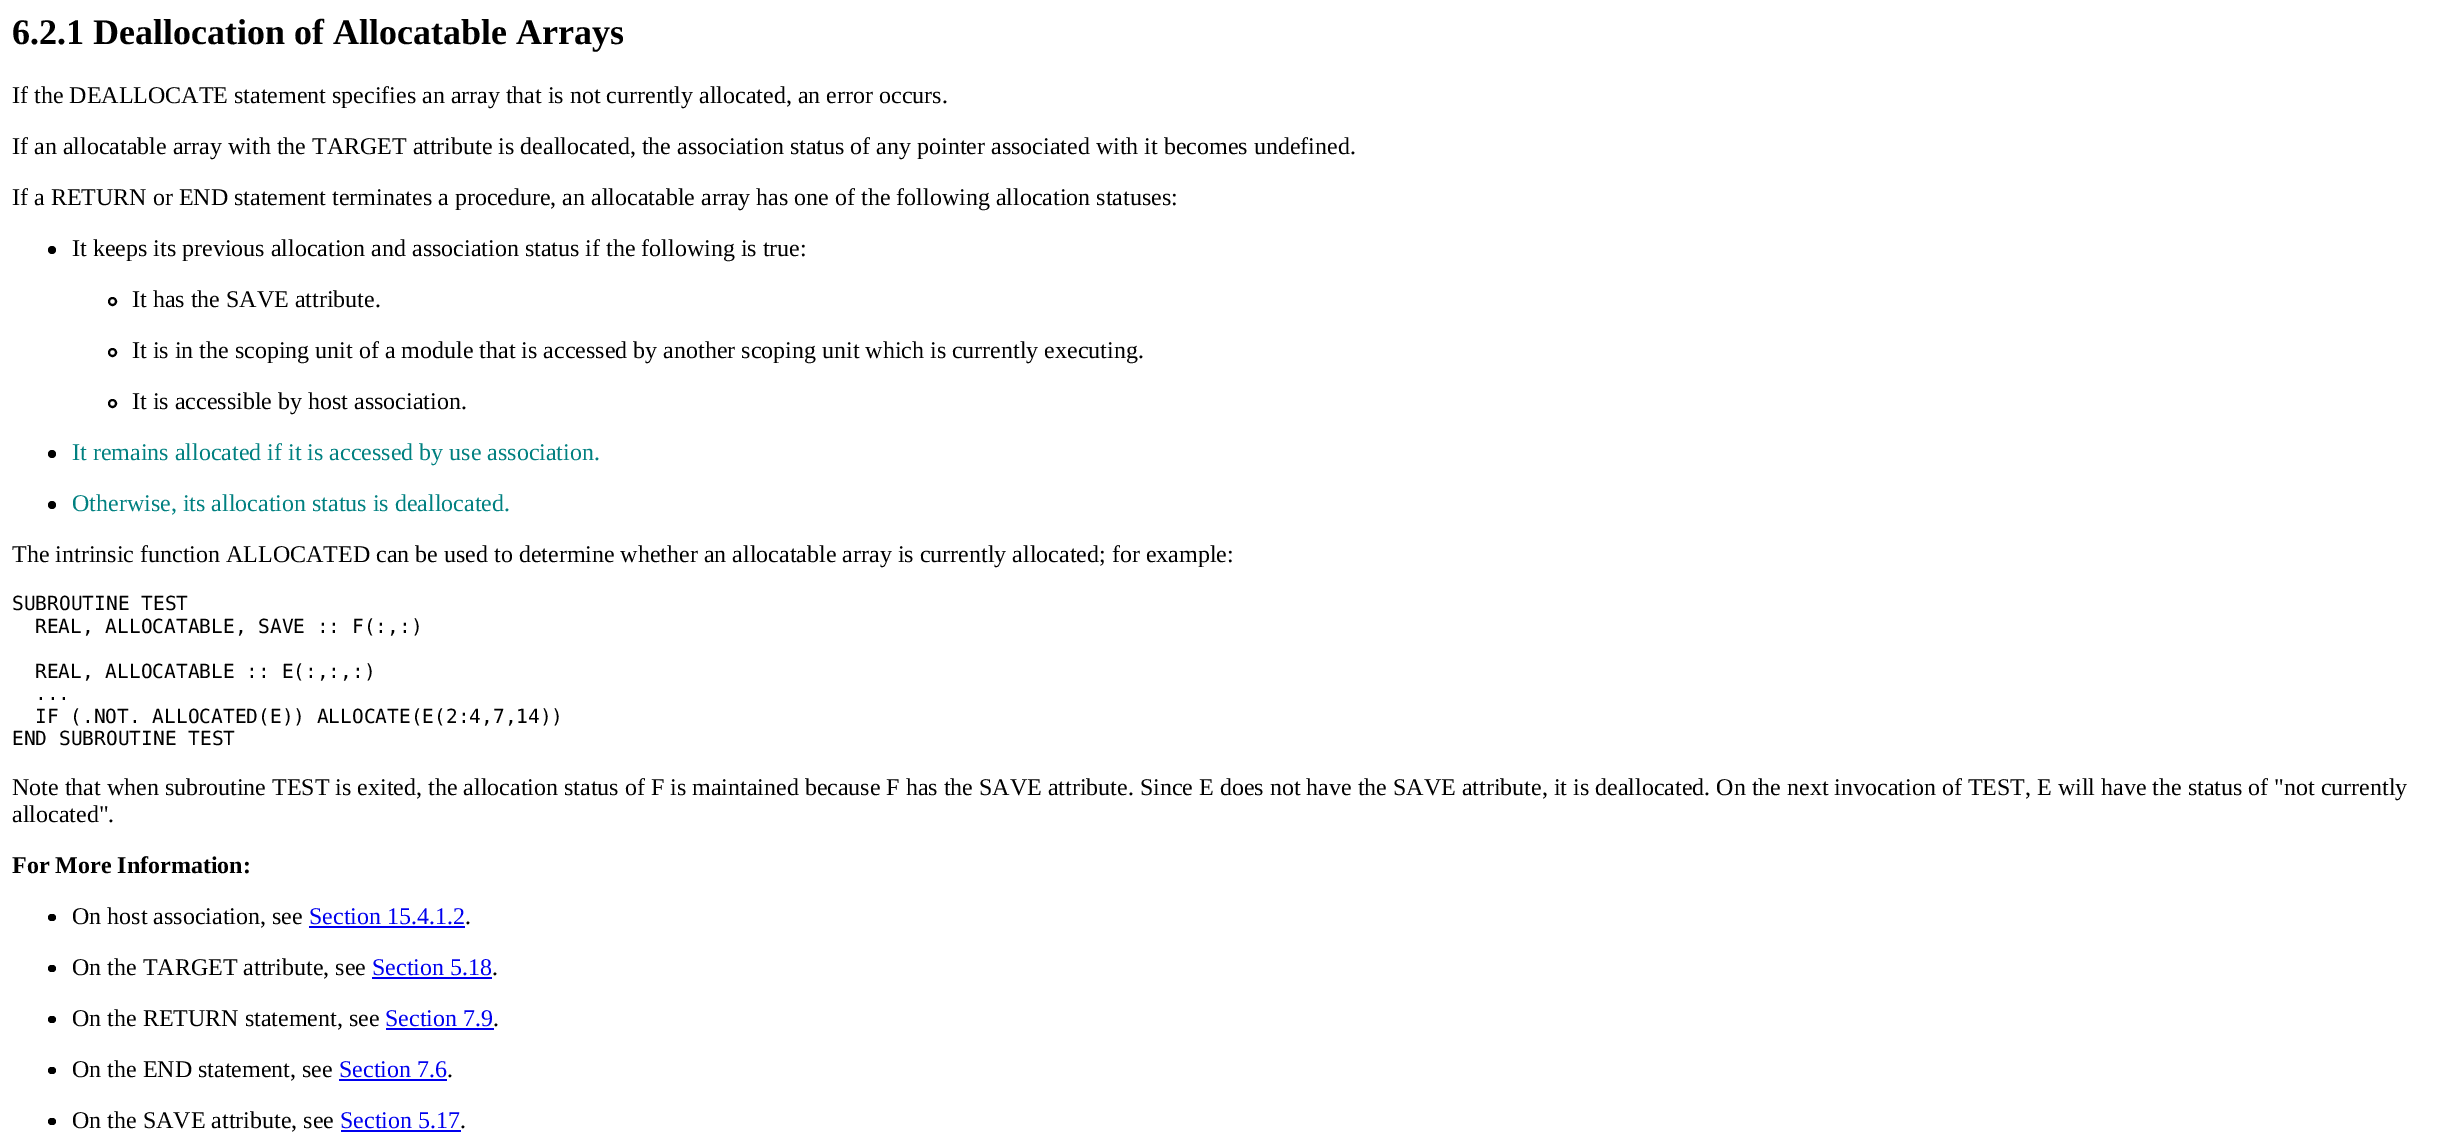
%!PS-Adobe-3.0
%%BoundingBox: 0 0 2464 1133
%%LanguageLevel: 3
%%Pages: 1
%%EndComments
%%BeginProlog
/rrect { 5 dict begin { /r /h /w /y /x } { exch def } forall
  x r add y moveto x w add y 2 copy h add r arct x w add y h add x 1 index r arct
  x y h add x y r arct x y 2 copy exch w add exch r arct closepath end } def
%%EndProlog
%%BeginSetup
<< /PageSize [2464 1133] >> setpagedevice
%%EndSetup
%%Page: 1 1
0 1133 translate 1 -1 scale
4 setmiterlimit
1 setgray
0 0 2464 1133 rectfill
0 setgray
newpath 52 250 4 0 360 arc closepath fill
2 setlinewidth
newpath 112.5 301.5 3.5 0 360 arc closepath stroke
newpath 112.5 352.5 3.5 0 360 arc closepath stroke
newpath 112.5 403.5 3.5 0 360 arc closepath stroke
newpath 52 454 4 0 360 arc closepath fill
newpath 52 505 4 0 360 arc closepath fill
48 914 8 7 3.5 rrect fill
0 0 0.933 setrgbcolor
309 926 156 2 rectfill
0 setgray
48 965 8 7 3.5 rrect fill
0 0 0.933 setrgbcolor
372 977 120 2 rectfill
0 setgray
48 1016 8 7 3.5 rrect fill
0 0 0.933 setrgbcolor
386 1028 108 2 rectfill
0 setgray
48 1067 8 7 3.5 rrect fill
0 0 0.933 setrgbcolor
339 1079 108 2 rectfill
0 setgray
48 1118 8 7 3.5 rrect fill
0 0 0.933 setrgbcolor
341 1130 120 2 rectfill
/LiberationSerif-Bold [36 0 0 -36 0 0] selectfont
0 setgray
12 44 moveto (6.2.1 Deallocation of Allocatable Arrays) show
/LiberationSerif-Regular [24 0 0 -24 0 0] selectfont
12 103 moveto (If the DEALLOCATE statement specifies an array that is not currently allocated, an error occurs.) show
12 154 moveto (If an allocatable array with the TARGET attribute is deallocated, the association status of any pointer associated with it becomes undefined.) show
12 205 moveto (If a RETURN or END statement terminates a procedure, an allocatable array has one of the following allocation statuses:) show
72 256 moveto (It keeps its previous allocation and association status if the following is true:) show
132 307 moveto (It has the SAVE attribute.) show
132 358 moveto (It is in the scoping unit of a module that is accessed by another scoping unit which is currently executing.) show
132 409 moveto (It is accessible by host association.) show
0 0.502 0.502 setrgbcolor
72 460 moveto (It remains allocated if it is accessed by use association.) show
72 511 moveto (Otherwise, its allocation status is deallocated.) show
0 setgray
12 562 moveto (The intrinsic function ALLOCATED can be used to determine whether an allocatable array is currently allocated; for example:) show
/DejaVuSansMono-Regular [19.5 0 0 -19.5 0 0] selectfont
12 610 moveto (SUBROUTINE TEST) show
35 633 moveto (REAL, ALLOCATABLE, SAVE :: F\(:,:\)) show
35 678 moveto (REAL, ALLOCATABLE :: E\(:,:,:\)) show
35 700 moveto (...) show
35 723 moveto (IF \(.NOT. ALLOCATED\(E\)\) ALLOCATE\(E\(2:4,7,14\)\)) show
12 745 moveto (END SUBROUTINE TEST) show
/LiberationSerif-Regular [24 0 0 -24 0 0] selectfont
12 795 moveto (Note that when subroutine TEST is exited, the allocation status of F is maintained because F has the SAVE attribute. Since E does not have the SAVE attribute, it is deallocated. On the next invocation of TEST, E will have the status of "not currently) show
12 822 moveto (allocated".) show
/LiberationSerif-Bold [24 0 0 -24 0 0] selectfont
12 873 moveto (For More Information:) show
/LiberationSerif-Regular [24 0 0 -24 0 0] selectfont
72 924 moveto (On host association, see) show
0 0 0.933 setrgbcolor
309 924 moveto (Section 15.4.1.2) show
0 setgray
465 924 moveto (.) show
72 975 moveto (On the TARGET attribute, see) show
0 0 0.933 setrgbcolor
372 975 moveto (Section 5.18) show
0 setgray
492 975 moveto (.) show
72 1026 moveto (On the RETURN statement, see) show
0 0 0.933 setrgbcolor
385 1026 moveto (Section 7.9) show
0 setgray
493 1026 moveto (.) show
72 1077 moveto (On the END statement, see) show
0 0 0.933 setrgbcolor
339 1077 moveto (Section 7.6) show
0 setgray
447 1077 moveto (.) show
72 1128 moveto (On the SAVE attribute, see) show
0 0 0.933 setrgbcolor
340 1128 moveto (Section 5.17) show
0 setgray
460 1128 moveto (.) show
showpage
%%EOF
